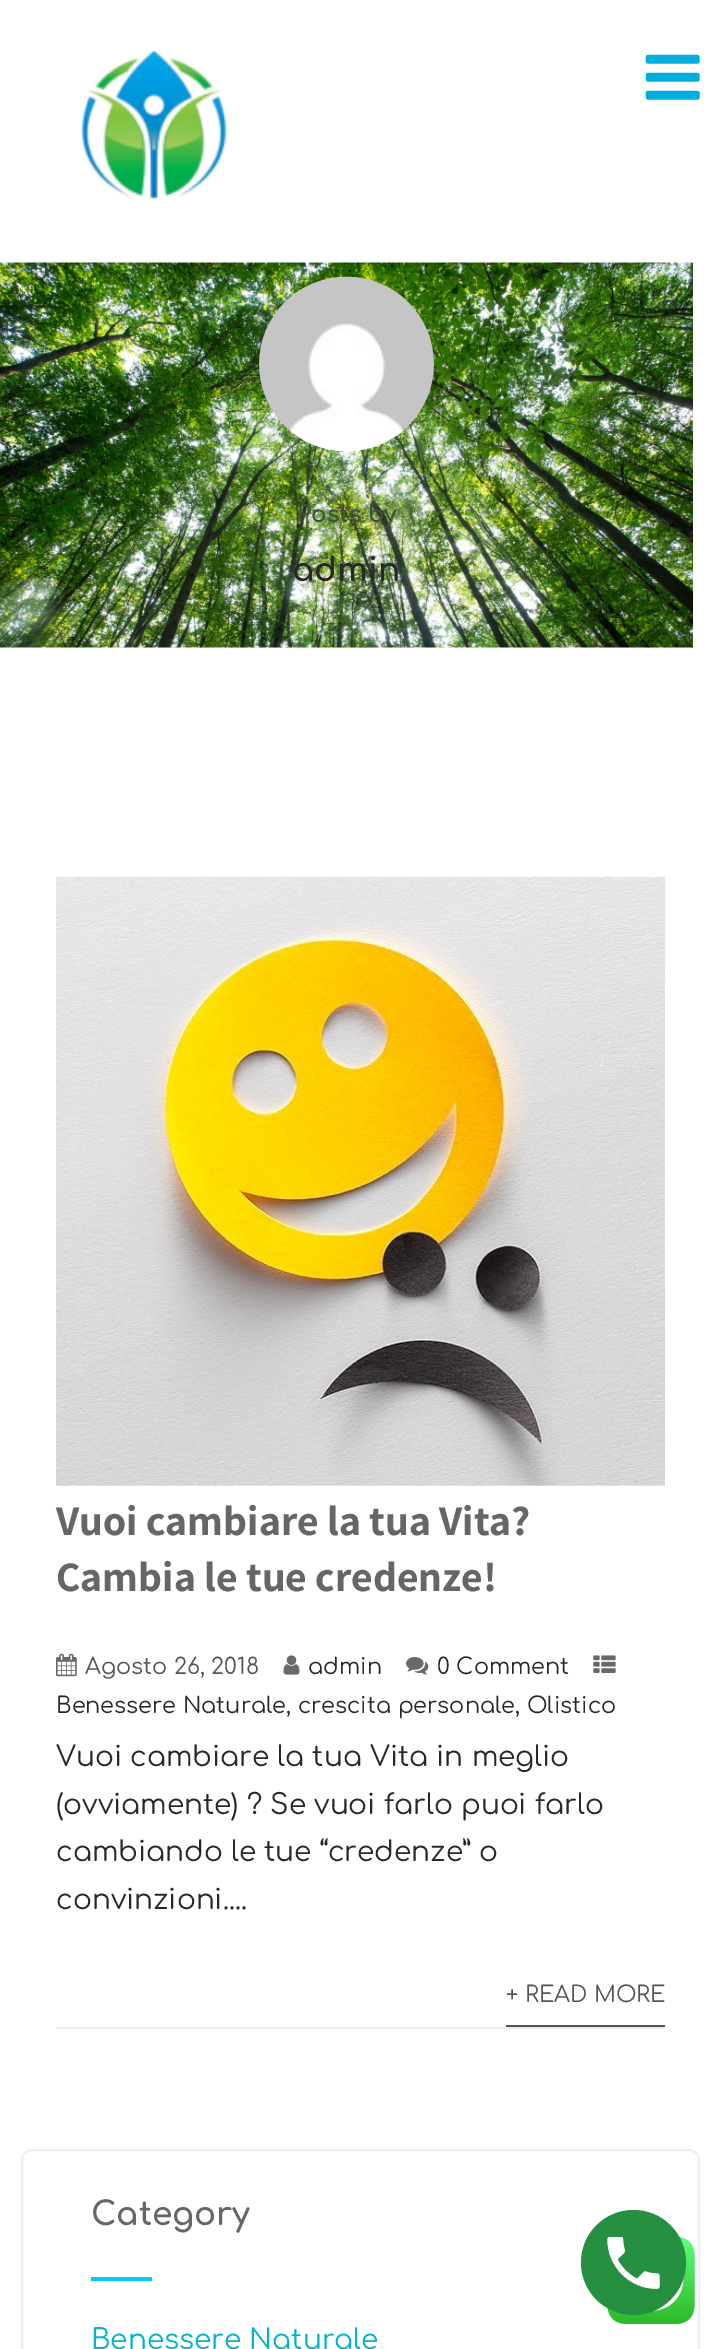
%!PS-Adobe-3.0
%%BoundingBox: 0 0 721 2349
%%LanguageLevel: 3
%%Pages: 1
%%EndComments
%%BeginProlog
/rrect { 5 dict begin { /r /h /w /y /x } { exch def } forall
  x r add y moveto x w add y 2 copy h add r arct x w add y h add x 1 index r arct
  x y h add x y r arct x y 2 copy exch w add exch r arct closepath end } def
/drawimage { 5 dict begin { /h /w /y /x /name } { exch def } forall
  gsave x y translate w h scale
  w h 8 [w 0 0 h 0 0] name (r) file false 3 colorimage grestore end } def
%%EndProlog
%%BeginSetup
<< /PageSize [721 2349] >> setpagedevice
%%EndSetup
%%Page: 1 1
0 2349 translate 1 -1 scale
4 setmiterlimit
1 setgray
0 0 721 2349 rectfill
(images/1.raw) 80 50 147 150 drawimage
(images/2.raw) 645 54 55 46 drawimage
(images/3.raw) 0 262 693 386 drawimage
(images/4.raw) 259 276 175 176 drawimage
(images/5.raw) 56 876 609 610 drawimage
(images/6.raw) 56 1653 21 24 drawimage
(images/7.raw) 283 1655 17 20 drawimage
(images/8.raw) 406 1657 23 18 drawimage
(images/9.raw) 593 1655 23 18 drawimage
0.922 setgray
56 2027 609 2 rectfill
0.329 setgray
506 2025 159 2 rectfill
0.933 0.937 0.961 setrgbcolor
2 setlinewidth
22 2150 677 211 10 rrect stroke
0 0.796 0.957 setrgbcolor
91 2277 61 4 rectfill
(images/11.raw) 607 2237 88 87 drawimage
0.149 0.565 0.255 setrgbcolor
newpath 633.5 2262.5 52.5 0 360 arc closepath fill
(images/10.raw) 607 2237 53 52 drawimage
/Comfortaa-Bold [23 0 0 -23 0 0] selectfont
0.267 0.314 0.212 setrgbcolor
297 522 moveto (Posts by) show
/Comfortaa-Bold [32.75 0 0 -32.75 0 0] selectfont
0.157 setgray
292 581 moveto (admin) show
/Assistant-ExtraLight [42 0 0 -42 0 0] selectfont
0.4 setgray
56 1535 moveto (Vuoi cambiare la tua Vita?) show
56 1591 moveto (Cambia le tue credenze!) show
/Comfortaa-Regular [22.4 0 0 -22.4 0 0] selectfont
0.329 setgray
85 1674 moveto (Agosto 26, 2018) show
0.157 setgray
308 1674 moveto (admin) show
437 1674 moveto (0 Comment) show
56 1713 moveto (Benessere Naturale, crescita personale, Olistico) show
/Comfortaa-Regular [28 0 0 -28 0 0] selectfont
56 1766 moveto (Vuoi cambiare la tua Vita in meglio) show
56 1814 moveto (\(ovviamente\) ? Se vuoi farlo puoi farlo) show
56 1861 moveto (cambiando le tue “credenze” o) show
56 1909 moveto (convinzioni....) show
/Comfortaa-Regular [22.4 0 0 -22.4 0 0] selectfont
0.329 setgray
506 2002 moveto (+ READ MORE) show
/Comfortaa-Bold [32.75 0 0 -32.75 0 0] selectfont
0.4 setgray
91 2225 moveto (Category) show
/Comfortaa-Regular [28 0 0 -28 0 0] selectfont
0 0.702 0.808 setrgbcolor
91 2349 moveto (Benessere Naturale) show
showpage
%%EOF
